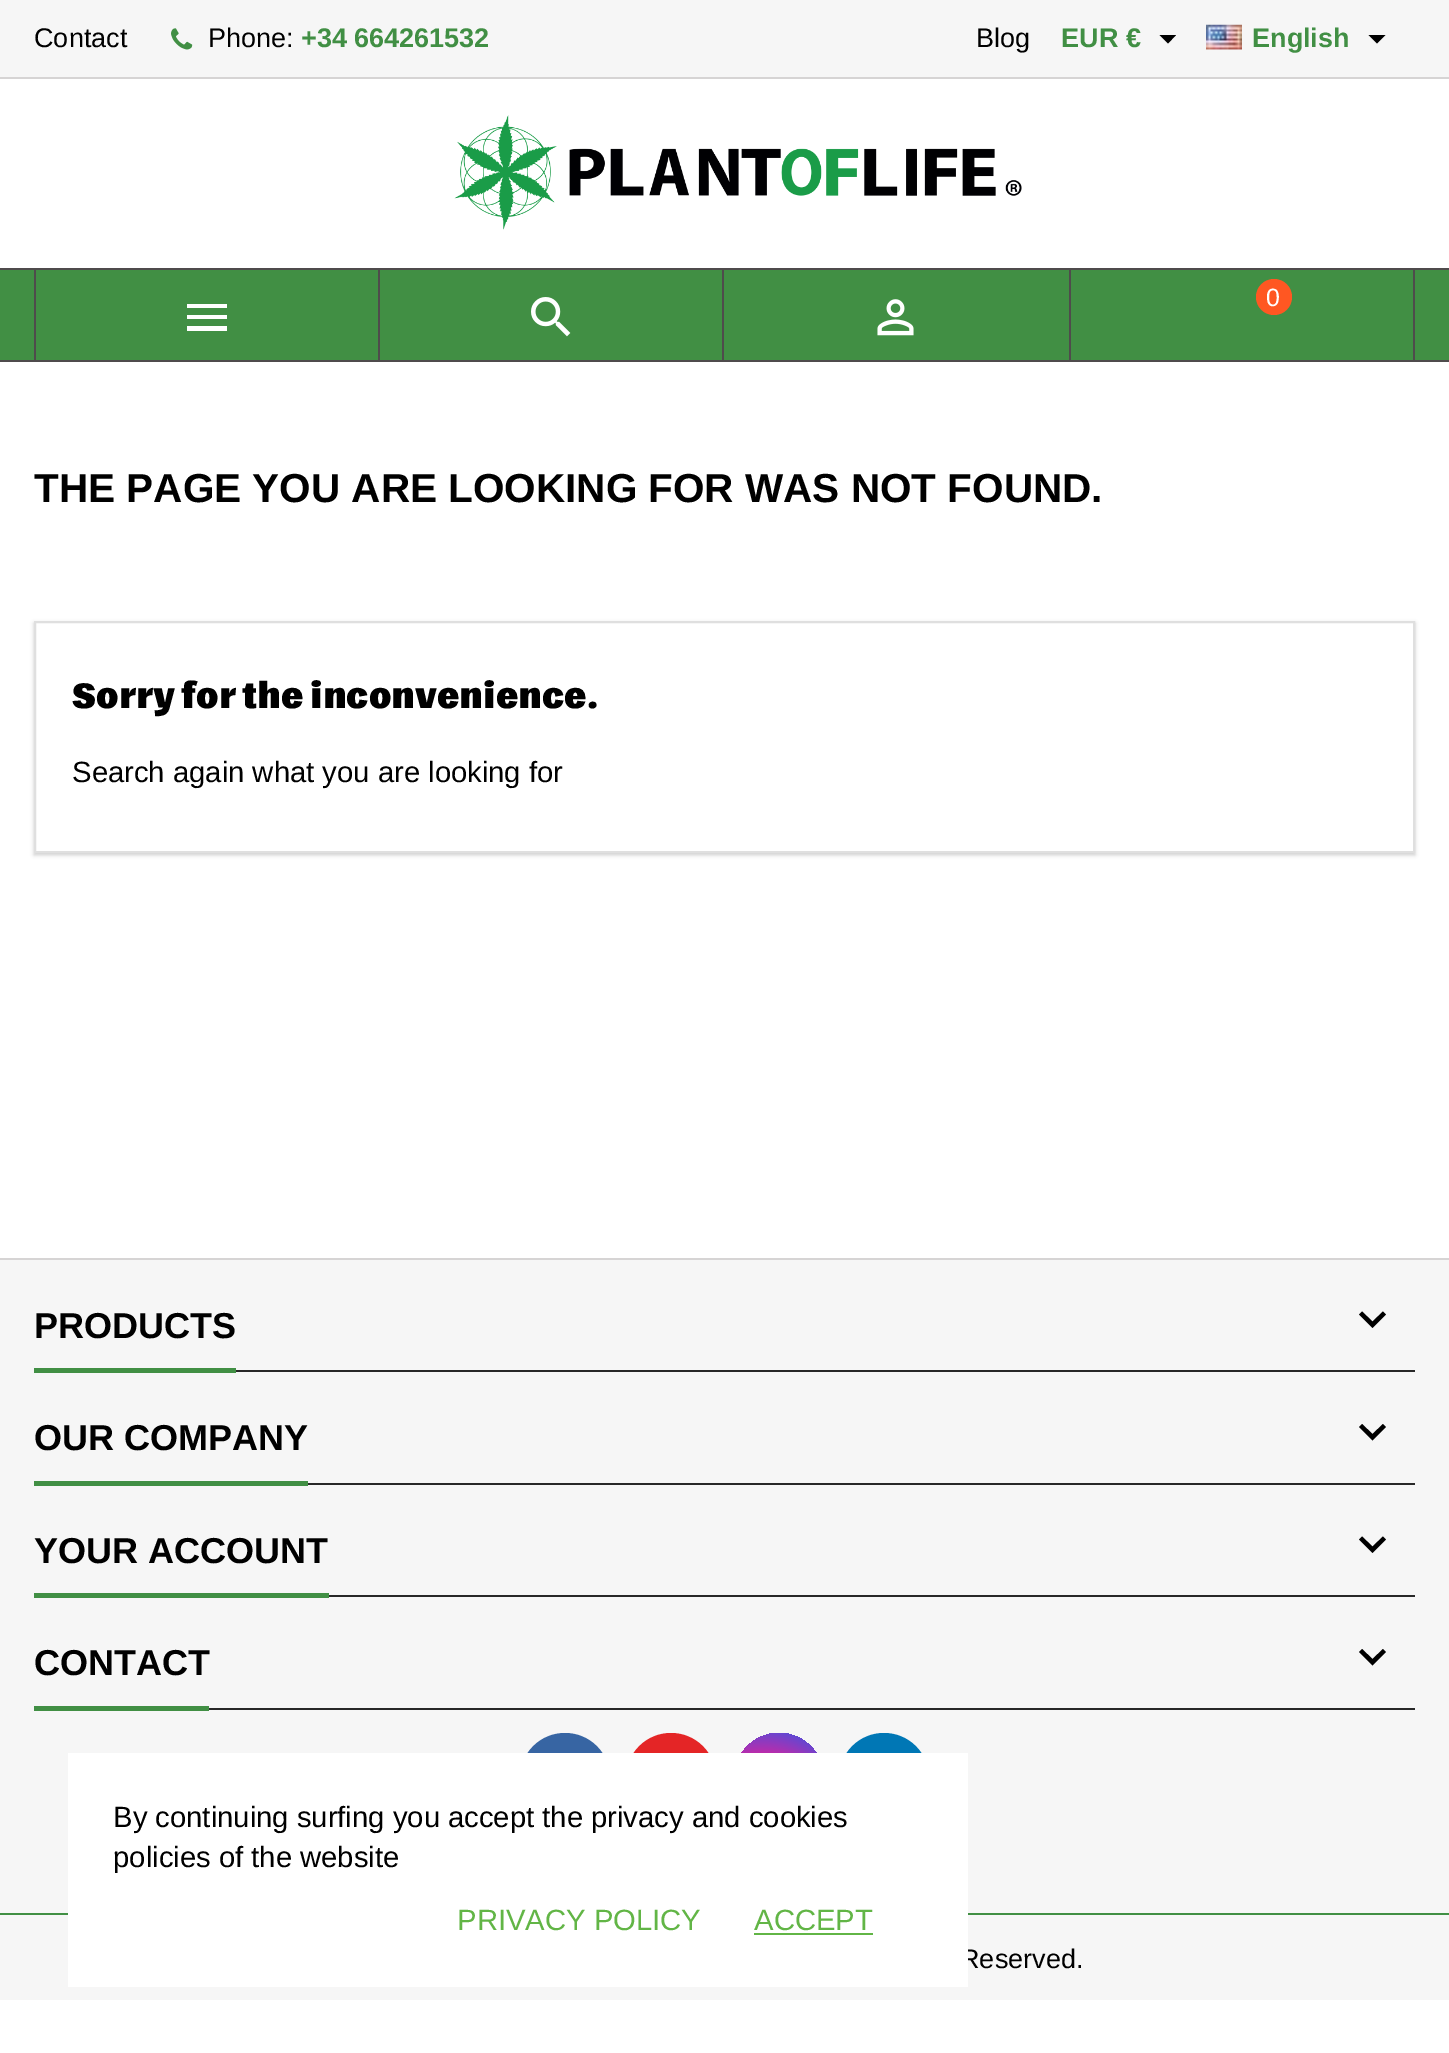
%!PS-Adobe-3.0
%%BoundingBox: 0 0 1449 2053
%%LanguageLevel: 3
%%Pages: 1
%%EndComments
%%BeginProlog
/setalpha { dup .setfillconstantalpha .setstrokeconstantalpha } def
/rrect { 5 dict begin { /r /h /w /y /x } { exch def } forall
  x r add y moveto x w add y 2 copy h add r arct x w add y h add x 1 index r arct
  x y h add x y r arct x y 2 copy exch w add exch r arct closepath end } def
/softshadow { 12 dict begin { /a /b /q /h /w /y /x } { exch def } forall gsave /was 0 def
  9 -2 -9 { dup b mul 4 div /e exch def 1 sub .425 mul 2.718 exch exp 1 add a .99 .min exch div /now exch def
    1 1 now sub 1 was sub div sub setalpha /was now def
    w h .min e 2 mul add 0 gt { x e sub y e sub w e 2 mul add h e 2 mul add
      q e add b .6 mul add w h .min 2 div e add .min 0 .max rrect fill } if } for grestore end } def
/drawimage { 5 dict begin { /h /w /y /x /name } { exch def } forall
  gsave x y translate w h scale
  w h 8 [w 0 0 h 0 0] name (r) file false 3 colorimage grestore end } def
%%EndProlog
%%BeginSetup
<< /PageSize [1449 2053] /PageUsesTransparency true >> setpagedevice
%%EndSetup
%%Page: 1 1
0 .pushpdf14devicefilter
0 2053 translate 1 -1 scale
4 setmiterlimit
1 setgray
0 0 1449 2053 rectfill
0.965 setgray
0 0 1449 77 rectfill
0.839 0.831 0.831 setrgbcolor
0 77 1449 2 rectfill
(images/1.raw) 171 28 22 22 drawimage
0 setgray
newpath 1159.5 35 moveto 1176 35 lineto 1168 43.5 lineto closepath fill
(images/2.raw) 1206 24 36 26 drawimage
newpath 1368.5 35 moveto 1385.5 35 lineto 1377 43.5 lineto closepath fill
(images/3.raw) 454 115 568 115 drawimage
0.255 0.561 0.267 setrgbcolor
0 270 1449 90 rectfill
0.31 0.294 0.298 setrgbcolor
0 268 1449 2 rectfill
0 360 1449 2 rectfill
378 270 2 90 rectfill
34 270 2 90 rectfill
1 setgray
newpath 187 304 moveto 227 304 lineto 227 308 lineto 187 308 lineto closepath 187 319 moveto 187 315 lineto 227 315 lineto 227 319 lineto closepath 187 331 moveto 187 326 lineto 227 326 lineto 227 331 lineto closepath fill
0.31 0.294 0.298 setrgbcolor
722 270 2 90 rectfill
(images/4.raw) 531 297 40 40 drawimage
1069 270 2 90 rectfill
(images/5.raw) 877 299 37 37 drawimage
1413 270 2 90 rectfill
1 0.341 0.133 setrgbcolor
newpath 1274 297 18 0 360 arc closepath fill
0 setgray
34 623 1381 232 0 2 0.2 softshadow
1 setgray
newpath 35 622 moveto 1414 622 lineto 1414 852 lineto 35 852 lineto closepath gsave fill grestore
0.875 setgray
2 setlinewidth
stroke
0.965 setgray
0 1260 1449 653 rectfill
0.839 0.831 0.831 setrgbcolor
0 1258 1449 2 rectfill
0.157 setgray
236 1370 1179 2 rectfill
0.255 0.561 0.267 setrgbcolor
34 1368 202 5 rectfill
0 setgray
newpath 1362 1311.5 moveto 1372.5 1321.5 lineto 1383 1311.5 lineto 1386 1314.5 lineto 1372.5 1328 lineto 1359 1314.5 lineto closepath fill
0.157 setgray
308 1483 1107 2 rectfill
0.255 0.561 0.267 setrgbcolor
34 1481 274 5 rectfill
0 setgray
newpath 1362 1424 moveto 1372.5 1434 lineto 1383 1424 lineto 1386 1427 lineto 1372.5 1440.5 lineto 1359 1427 lineto closepath fill
0.157 setgray
329 1595 1086 2 rectfill
0.255 0.561 0.267 setrgbcolor
34 1593 295 5 rectfill
0 setgray
newpath 1362 1536.5 moveto 1372.5 1546.5 lineto 1383 1536.5 lineto 1386 1539.5 lineto 1372.5 1553 lineto 1359 1539.5 lineto closepath fill
0.157 setgray
209 1708 1206 2 rectfill
0.255 0.561 0.267 setrgbcolor
34 1706 175 5 rectfill
0 setgray
newpath 1362 1649 moveto 1372.5 1659 lineto 1383 1649 lineto 1386 1652 lineto 1372.5 1665.5 lineto 1359 1652 lineto closepath fill
0.216 0.396 0.639 setrgbcolor
newpath 565 1778 45 0 360 arc closepath fill
0.894 0.145 0.149 setrgbcolor
newpath 671 1778 45 0 360 arc closepath fill
gsave newpath 779 1778 45 0 360 arc closepath clip newpath 761 1829 translate 115 115 scale
<< /ShadingType 3 /ColorSpace /DeviceRGB /Coords [0 0 0 0 0 1] /Extend [true true] /Function << /FunctionType 3 /Domain [0 1] /Functions [<< /FunctionType 2 /Domain [0 1] /C0 [0.992 0.957 0.592] /C1 [0.992 0.957 0.592] /N 1 >> << /FunctionType 2 /Domain [0 1] /C0 [0.992 0.957 0.592] /C1 [0.992 0.349 0.286] /N 1 >> << /FunctionType 2 /Domain [0 1] /C0 [0.992 0.349 0.286] /C1 [0.839 0.141 0.624] /N 1 >> << /FunctionType 2 /Domain [0 1] /C0 [0.839 0.141 0.624] /C1 [0.157 0.353 0.922] /N 1 >>] /Bounds [0.05 0.45 0.6] /Encode [0 1 0 1 0 1 0 1] >> >> shfill grestore
0 0.467 0.71 setrgbcolor
newpath 884 1778 45 0 360 arc closepath fill
0.965 setgray
0 1915 1449 85 rectfill
0.255 0.561 0.267 setrgbcolor
0 1913 1449 2 rectfill
/LiberationSans-Regular [27 0 0 -27 0 0] selectfont
0 setgray
34 47 moveto (Contact) show
208 47 moveto (Phone:) show
/LiberationSans-Bold [27 0 0 -27 0 0] selectfont
0.255 0.561 0.267 setrgbcolor
301 47 moveto (+34 664261532) show
/LiberationSans-Regular [27 0 0 -27 0 0] selectfont
0 setgray
976 47 moveto (Blog) show
/LiberationSans-Bold [27 0 0 -27 0 0] selectfont
0.255 0.561 0.267 setrgbcolor
1061 47 moveto (EUR €) show
1252 47 moveto (English) show
/LiberationSans-Regular [25 0 0 -25 0 0] selectfont
1 setgray
1266 306 moveto (0) show
/LiberationSans-Bold [40.5 0 0 -40.5 0 0] selectfont
0 setgray
34 502 moveto (THE PAGE YOU ARE LOOKING FOR WAS NOT FOUND.) show
/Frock-Black [36 0 0 -36 0 0] selectfont
72 708 moveto (Sorry for the inconvenience.) show
/LiberationSans-Regular [29.25 0 0 -29.25 0 0] selectfont
72 782 moveto (Search again what you are looking for) show
/LiberationSans-Bold [36 0 0 -36 0 0] selectfont
34 1338 moveto (PRODUCTS) show
34 1450 moveto (OUR COMPANY) show
34 1563 moveto (YOUR ACCOUNT) show
34 1675 moveto (CONTACT) show
/LiberationSans-Regular [27 0 0 -27 0 0] selectfont
960 1968 moveto (Reserved.) show
1 setgray
68 1753 900 234 rectfill
/LiberationSans-Regular [29.25 0 0 -29.25 0 0] selectfont
0 setgray
113 1827 moveto (By continuing surfing you accept the privacy and cookies) show
113 1867 moveto (policies of the website) show
0.384 0.71 0.275 setrgbcolor
457 1930 moveto (PRIVACY POLICY) show
754 1930 moveto (ACCEPT) show
754 1933 119 2 rectfill
.poppdf14devicefilter showpage
%%EOF
